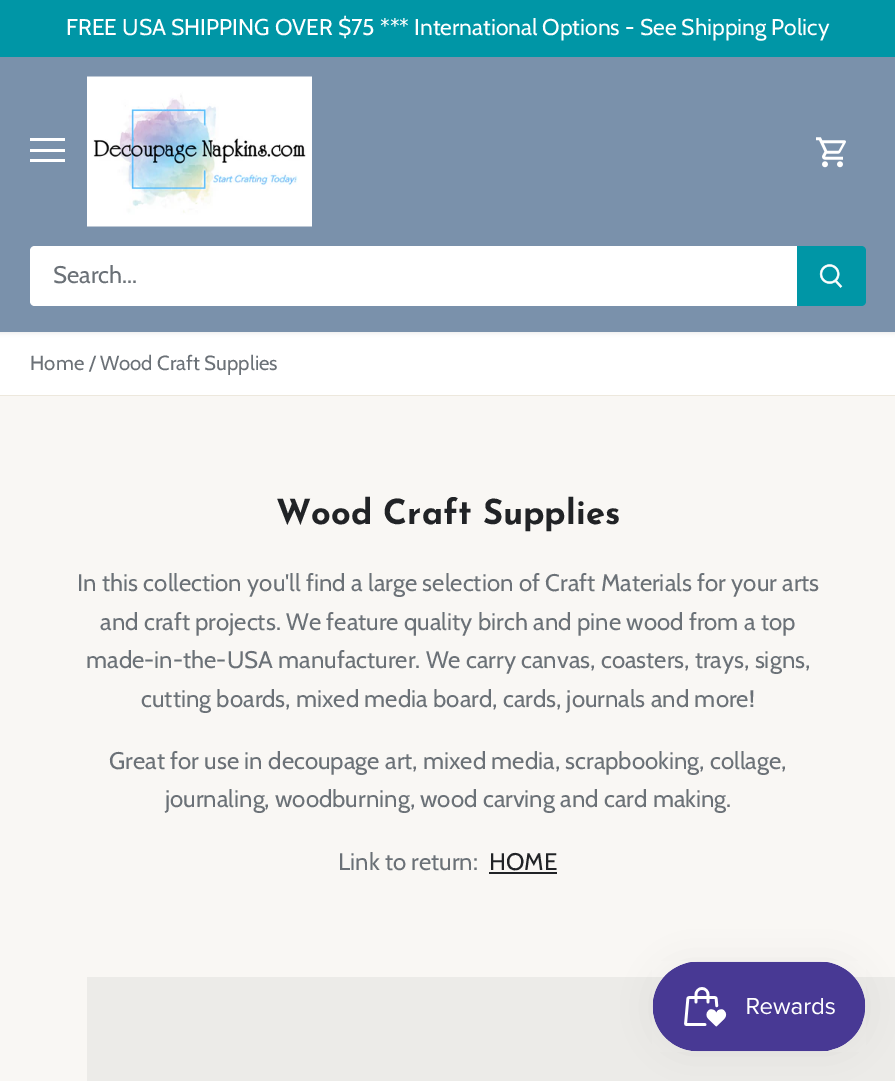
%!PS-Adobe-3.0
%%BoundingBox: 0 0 895 1081
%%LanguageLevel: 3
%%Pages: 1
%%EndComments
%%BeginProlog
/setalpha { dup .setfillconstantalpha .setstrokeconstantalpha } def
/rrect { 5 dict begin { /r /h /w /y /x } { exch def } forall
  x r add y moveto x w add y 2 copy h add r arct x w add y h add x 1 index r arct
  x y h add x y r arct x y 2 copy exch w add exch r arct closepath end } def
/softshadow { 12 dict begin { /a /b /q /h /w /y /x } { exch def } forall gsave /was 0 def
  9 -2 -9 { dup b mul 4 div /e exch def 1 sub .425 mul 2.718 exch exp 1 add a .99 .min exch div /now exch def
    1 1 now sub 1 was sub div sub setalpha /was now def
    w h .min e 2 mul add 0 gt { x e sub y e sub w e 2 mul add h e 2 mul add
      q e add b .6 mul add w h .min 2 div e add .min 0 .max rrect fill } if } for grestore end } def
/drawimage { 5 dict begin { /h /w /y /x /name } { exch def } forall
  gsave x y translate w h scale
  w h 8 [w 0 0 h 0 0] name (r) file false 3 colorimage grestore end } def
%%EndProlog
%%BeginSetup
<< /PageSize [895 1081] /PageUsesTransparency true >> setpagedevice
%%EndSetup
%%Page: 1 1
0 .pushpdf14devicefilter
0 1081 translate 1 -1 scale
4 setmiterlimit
1 setgray
0 0 895 1081 rectfill
0 setgray
-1 56 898 277 0 2 0.08 softshadow
0 0.588 0.651 setrgbcolor
0 0 895 57 rectfill
0.478 0.569 0.671 setrgbcolor
0 57 895 275 rectfill
1 setgray
30 138 35 3 rectfill
30 149 35 3 rectfill
30 159 35 3 rectfill
(images/1.raw) 87 76 225 151 drawimage
(images/2.raw) 816 137 30 31 drawimage
newpath 35 246 moveto 798 246 lineto 798 306 lineto 35 306 lineto 32 306 30 304 30 301 curveto 30 251 lineto 30 248 32 246 35 246 curveto closepath fill
0 0.588 0.651 setrgbcolor
newpath 797 246 moveto 861 246 lineto 864 246 866 248 866 251 curveto 866 301 lineto 866 304 864 306 861 306 curveto 797 306 lineto closepath fill
(images/3.raw) 819 264 24 24 drawimage
0.929 0.91 0.867 setrgbcolor
0 395 895 1 rectfill
0.976 0.969 0.957 setrgbcolor
0 396 895 685 rectfill
0.129 0.137 0.149 setrgbcolor
489 872 68 2 rectfill
0.925 0.922 0.91 setrgbcolor
87 977 808 104 rectfill
0 setgray
653 962 213 90 45 19 0.05 softshadow
(images/4.raw) 652 961 214 91 drawimage
/Cabin-Regular [22.8 0 0 -22.8 0 0] selectfont
1 setgray
66 35 moveto (FREE USA SHIPPING OVER $75 *** International Options - See Shipping Policy) show
/Cabin-Regular [24 0 0 -24 0 0] selectfont
0.42 0.443 0.467 setrgbcolor
53 283 moveto (Search...) show
/Cabin-Regular [20.4 0 0 -20.4 0 0] selectfont
30 370 moveto (Home / Wood Craft Supplies) show
/JosefinSans-Bold [34.5 0 0 -34.5 0 0] selectfont
0.129 0.137 0.149 setrgbcolor
276 524 moveto (Wood Craft Supplies) show
/Cabin-Regular [24 0 0 -24 0 0] selectfont
0.42 0.443 0.467 setrgbcolor
77 591 moveto (In this collection you'll find a large selection of Craft Materials for your arts) show
100 630 moveto (and craft projects. We feature quality birch and pine wood from a top) show
86 668 moveto (made-in-the-USA manufacturer. We carry canvas, coasters, trays, signs,) show
141 707 moveto (cutting boards, mixed media board, cards, journals and more!) show
109 769 moveto (Great for use in decoupage art, mixed media, scrapbooking, collage,) show
165 807 moveto (journaling, woodburning, wood carving and card making.) show
338 870 moveto (Link to return:) show
0.129 0.137 0.149 setrgbcolor
489 870 moveto (HOME) show
.poppdf14devicefilter showpage
%%EOF
